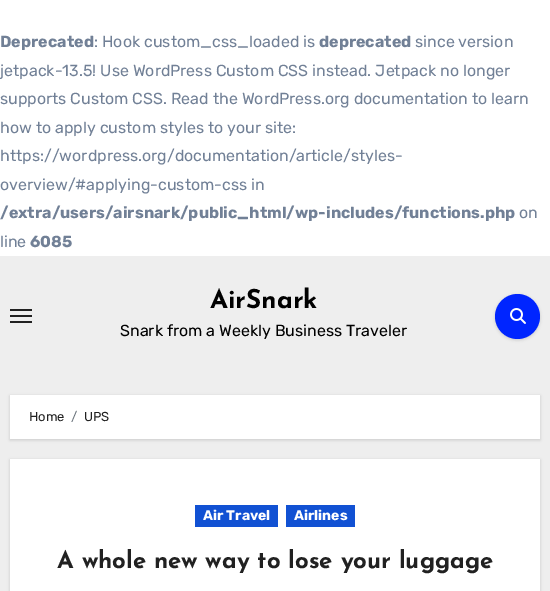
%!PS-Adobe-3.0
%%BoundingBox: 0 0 550 591
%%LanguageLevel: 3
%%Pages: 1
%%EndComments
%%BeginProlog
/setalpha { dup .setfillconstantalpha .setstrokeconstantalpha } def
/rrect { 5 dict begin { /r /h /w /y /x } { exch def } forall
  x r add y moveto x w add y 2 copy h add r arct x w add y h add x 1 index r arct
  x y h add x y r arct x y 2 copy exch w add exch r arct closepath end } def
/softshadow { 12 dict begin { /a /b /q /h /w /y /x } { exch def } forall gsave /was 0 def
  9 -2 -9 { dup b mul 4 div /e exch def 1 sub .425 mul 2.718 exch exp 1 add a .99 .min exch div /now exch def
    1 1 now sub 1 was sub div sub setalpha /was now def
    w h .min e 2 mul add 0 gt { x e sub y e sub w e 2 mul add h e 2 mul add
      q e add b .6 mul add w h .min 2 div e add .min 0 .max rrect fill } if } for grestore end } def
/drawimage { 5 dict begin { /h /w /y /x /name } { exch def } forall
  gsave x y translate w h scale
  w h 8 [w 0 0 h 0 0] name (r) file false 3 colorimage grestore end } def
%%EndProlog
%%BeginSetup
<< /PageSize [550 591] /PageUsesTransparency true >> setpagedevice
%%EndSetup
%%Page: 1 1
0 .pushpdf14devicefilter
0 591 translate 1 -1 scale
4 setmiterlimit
1 setgray
0 0 550 591 rectfill
0.933 setgray
0 256 550 335 rectfill
0.129 setgray
10 309 22 2 rectfill
10 315 22 2 rectfill
10 321 22 2 rectfill
0 setgray
495 295 45 45 22.5 1.5 0.15 softshadow
0 0.145 1 setrgbcolor
newpath 517.5 316.5 22.5 0 360 arc closepath fill
(images/1.raw) 510 308 16 16 drawimage
0 setgray
10 396 530 44 0 1.5 0.15 softshadow
1 setgray
10 395 530 44 rectfill
0 setgray
10 460 530 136 0 1.5 0.15 softshadow
1 setgray
10 459 530 132 rectfill
0.067 0.318 0.827 setrgbcolor
195 505 83 22 rectfill
286 505 69 22 rectfill
/Rubik-Bold [16 0 0 -16 0 0] selectfont
0.443 0.502 0.588 setrgbcolor
0 47 moveto (Deprecated) show
/Rubik-Light [16 0 0 -16 0 0] selectfont
94 47 moveto (: Hook custom_css_loaded is) show
/Rubik-Bold [16 0 0 -16 0 0] selectfont
319 47 moveto (deprecated) show
/Rubik-Light [16 0 0 -16 0 0] selectfont
415 47 moveto (since version) show
0 76 moveto (jetpack-13.5! Use WordPress Custom CSS instead. Jetpack no longer) show
0 104 moveto (supports Custom CSS. Read the WordPress.org documentation to learn) show
0 133 moveto (how to apply custom styles to your site:) show
0 161 moveto (https://wordpress.org/documentation/article/styles-) show
0 190 moveto (overview/#applying-custom-css in) show
/Rubik-Bold [16 0 0 -16 0 0] selectfont
0 218 moveto (/extra/users/airsnark/public_html/wp-includes/functions.php) show
/Rubik-Light [16 0 0 -16 0 0] selectfont
519 218 moveto (on) show
0 247 moveto (line) show
/Rubik-Bold [16 0 0 -16 0 0] selectfont
30 247 moveto (6085) show
/JosefinSans-Bold [26 0 0 -26 0 0] selectfont
0 setgray
210 308 moveto (AirSnark) show
/Rubik-Light [16 0 0 -16 0 0] selectfont
120 336 moveto (Snark from a Weekly Business Traveler) show
/Rubik-Light [13 0 0 -13 0 0] selectfont
0.129 setgray
29 421 moveto (Home) show
0.424 0.459 0.49 setrgbcolor
71 421 moveto (/) show
0.129 setgray
84 421 moveto (UPS) show
/Rubik-Bold [14 0 0 -14 0 0] selectfont
1 setgray
203 520 moveto (Air Travel) show
294 520 moveto (Airlines) show
/JosefinSans-Bold [24 0 0 -24 0 0] selectfont
0.129 setgray
57 568 moveto (A whole new way to lose your luggage) show
.poppdf14devicefilter showpage
%%EOF
